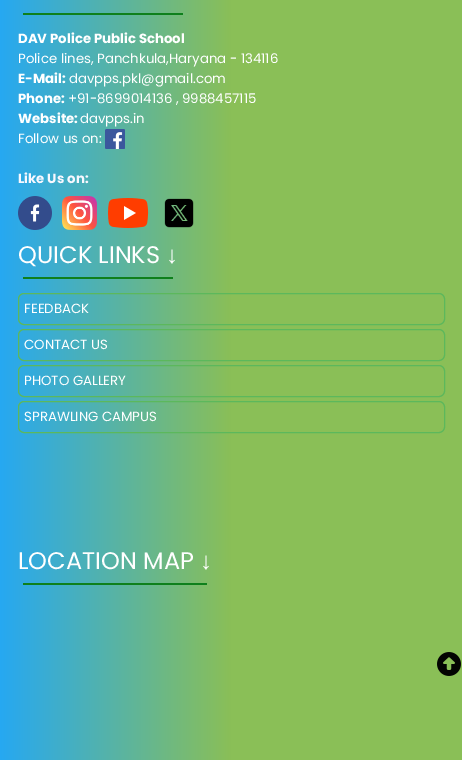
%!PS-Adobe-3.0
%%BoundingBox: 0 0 462 760
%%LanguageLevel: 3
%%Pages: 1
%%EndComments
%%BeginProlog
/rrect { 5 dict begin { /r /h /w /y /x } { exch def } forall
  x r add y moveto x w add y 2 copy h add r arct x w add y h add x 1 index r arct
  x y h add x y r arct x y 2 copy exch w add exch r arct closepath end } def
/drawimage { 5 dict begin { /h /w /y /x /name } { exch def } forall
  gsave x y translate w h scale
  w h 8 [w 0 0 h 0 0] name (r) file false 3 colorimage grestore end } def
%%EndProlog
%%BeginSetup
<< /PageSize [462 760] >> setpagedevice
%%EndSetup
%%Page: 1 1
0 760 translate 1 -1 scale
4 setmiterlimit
1 setgray
0 0 462 760 rectfill
gsave newpath 0 0 moveto 462 0 lineto 462 760 lineto 0 760 lineto closepath clip newpath
<< /ShadingType 2 /ColorSpace /DeviceRGB /Coords [0 386 462 386] /Extend [true true] /Function << /FunctionType 3 /Domain [0 1] /Functions [<< /FunctionType 2 /Domain [0 1] /C0 [0.149 0.659 0.949] /C1 [0.541 0.749 0.341] /N 1 >> << /FunctionType 2 /Domain [0 1] /C0 [0.541 0.749 0.341] /C1 [0.541 0.749 0.341] /N 1 >>] /Bounds [0.5] /Encode [0 1 0 1] >> >> shfill grestore
0.055 0.502 0.11 setrgbcolor
23 13 160 2 rectfill
(images/1.raw) 105 129 20 20 drawimage
(images/2.raw) 18 196 34 34 drawimage
(images/3.raw) 62 196 35 34 drawimage
(images/4.raw) 108 198 41 30 drawimage
(images/5.raw) 164 198 30 30 drawimage
23 277 150 2 rectfill
0.361 0.722 0.361 setrgbcolor
18.5 293.5 426 31 5.5 rrect stroke
18.5 329.5 426 31 5.5 rrect stroke
18.5 365.5 426 31 5.5 rrect stroke
18.5 401.5 426 31 5.5 rrect stroke
0.055 0.502 0.11 setrgbcolor
23 583 184 2 rectfill
(images/6.raw) 437 652 24 24 drawimage
/Poppins-Bold [13.3 0 0 -13.3 0 0] selectfont
1 setgray
18 43 moveto (DAV Police Public School) show
/Poppins-Regular [13.3 0 0 -13.3 0 0] selectfont
18 63 moveto (Police lines, Panchkula,Haryana - 134116) show
/Poppins-Bold [13.3 0 0 -13.3 0 0] selectfont
18 83 moveto (E-Mail:) show
/Poppins-Regular [13.3 0 0 -13.3 0 0] selectfont
69 83 moveto (davpps.pkl@gmail.com) show
/Poppins-Bold [13.3 0 0 -13.3 0 0] selectfont
18 103 moveto (Phone:) show
/Poppins-Regular [13.3 0 0 -13.3 0 0] selectfont
68 103 moveto (+91-8699014136 , 9988457115) show
/Poppins-Bold [13.3 0 0 -13.3 0 0] selectfont
18 123 moveto (Website:) show
/Poppins-Regular [13.3 0 0 -13.3 0 0] selectfont
80 123 moveto (davpps.in) show
18 143 moveto (Follow us on:) show
/Poppins-Bold [13.3 0 0 -13.3 0 0] selectfont
0.973 0.973 1 setrgbcolor
18 183 moveto (Like Us on:) show
/Poppins-Regular [24 0 0 -24 0 0] selectfont
1 setgray
18 263 moveto (QUICK LINKS) show
/LiberationSans-Regular [24 0 0 -24 0 0] selectfont
166 263 moveto (↓) show
/Poppins-Regular [13.3 0 0 -13.3 0 0] selectfont
24 313 moveto (FEEDBACK) show
24 349 moveto (CONTACT US) show
24 385 moveto (PHOTO GALLERY) show
24 421 moveto (SPRAWLING CAMPUS) show
/Poppins-Regular [24 0 0 -24 0 0] selectfont
18 569 moveto (LOCATION MAP) show
/LiberationSans-Regular [24 0 0 -24 0 0] selectfont
200 569 moveto (↓) show
showpage
%%EOF
